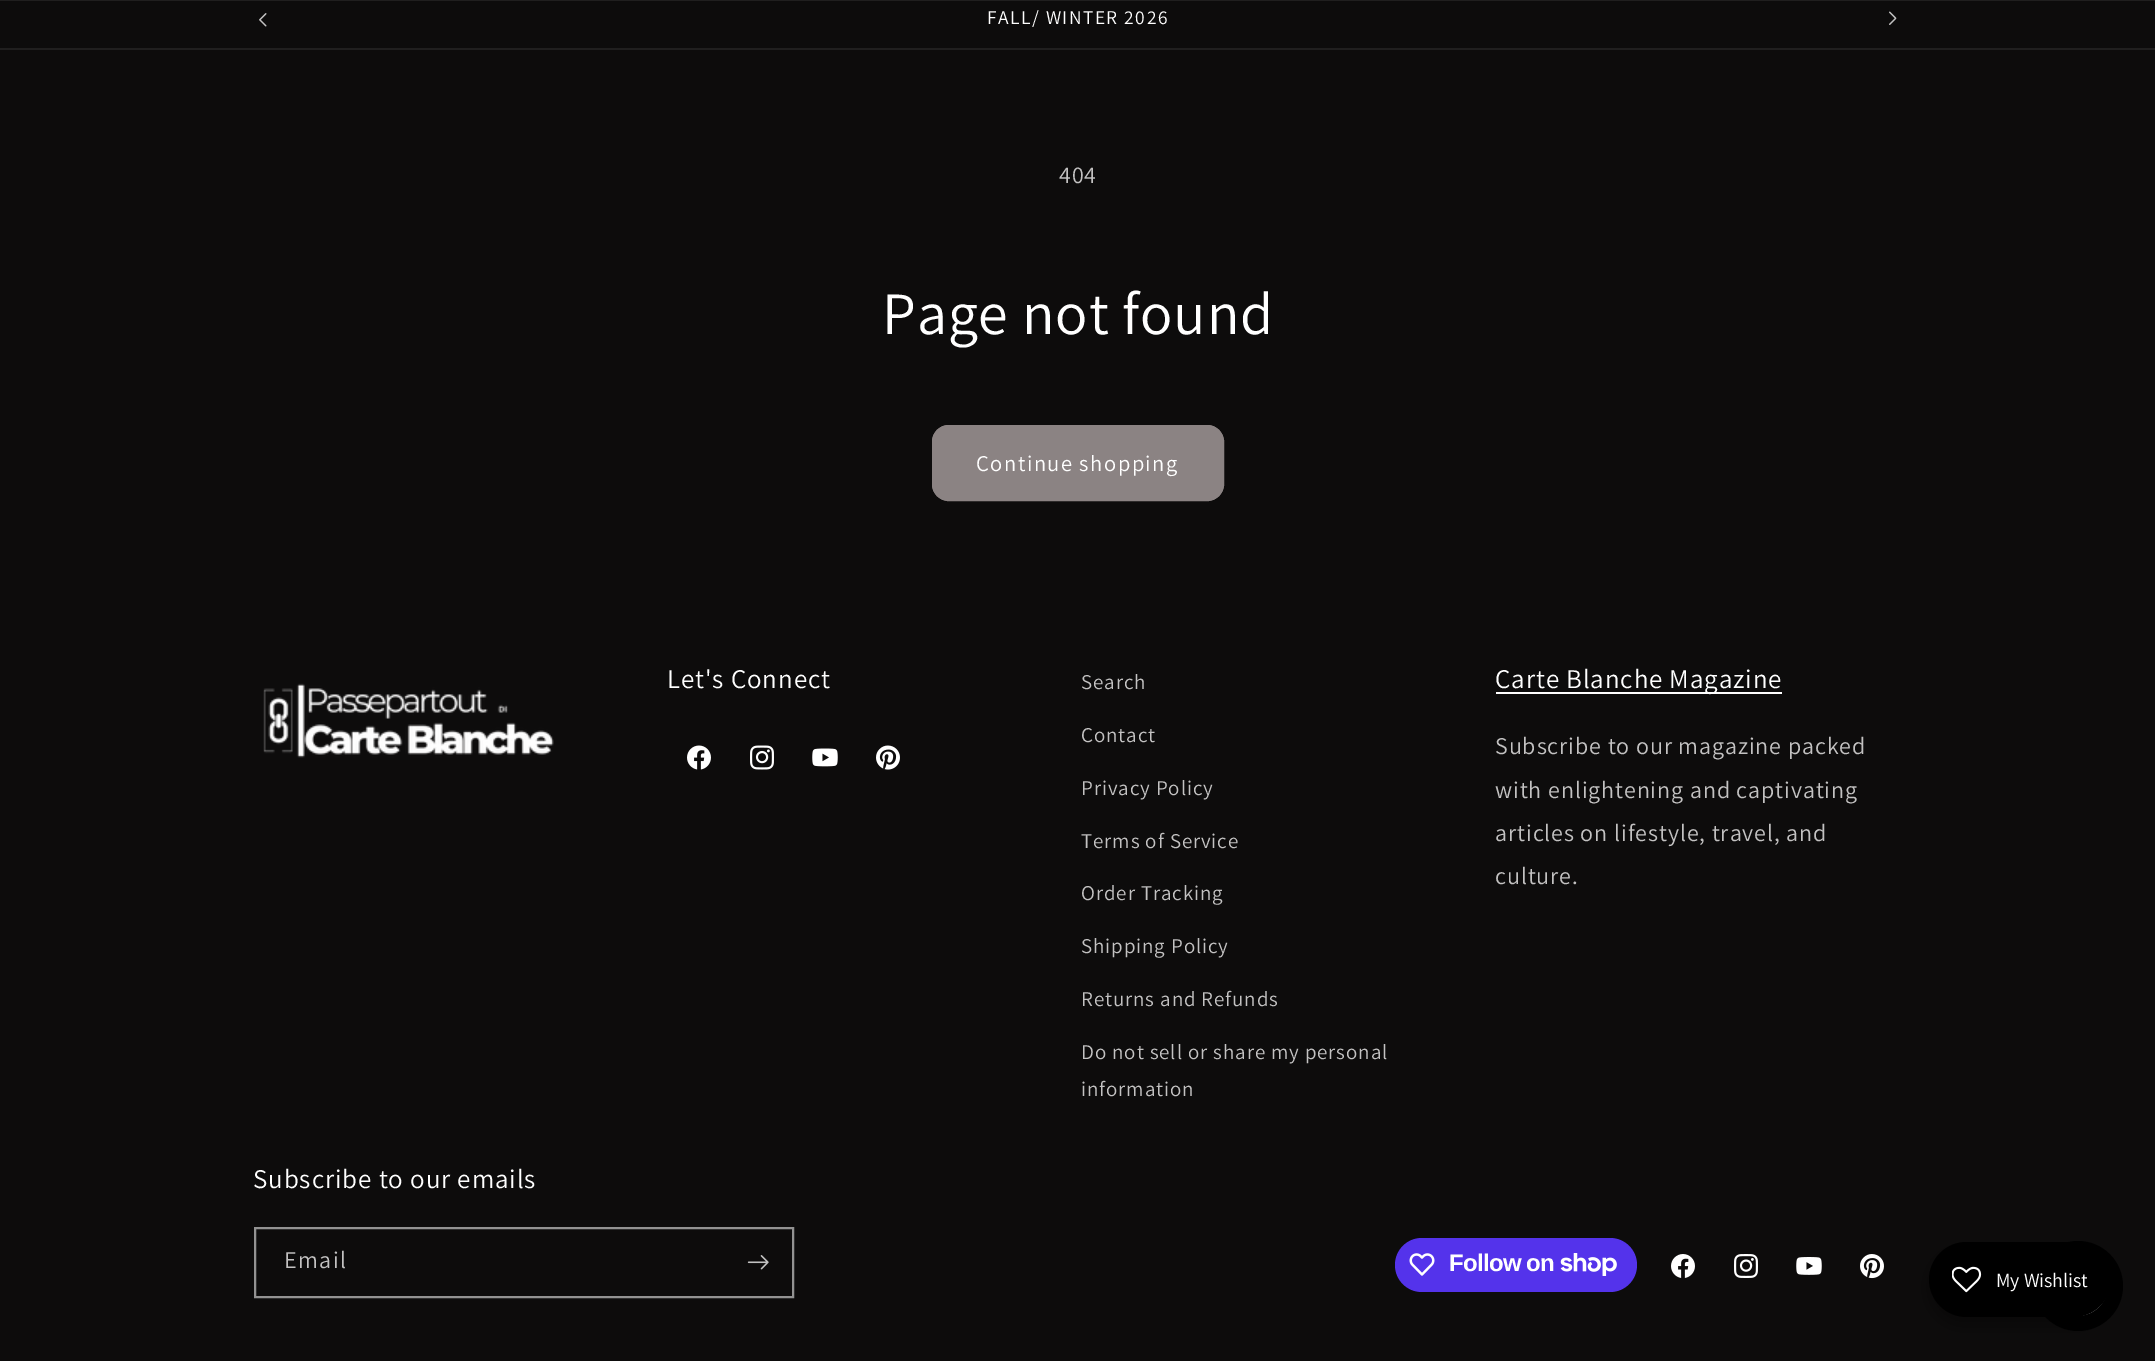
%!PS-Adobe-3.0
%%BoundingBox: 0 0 2155 1361
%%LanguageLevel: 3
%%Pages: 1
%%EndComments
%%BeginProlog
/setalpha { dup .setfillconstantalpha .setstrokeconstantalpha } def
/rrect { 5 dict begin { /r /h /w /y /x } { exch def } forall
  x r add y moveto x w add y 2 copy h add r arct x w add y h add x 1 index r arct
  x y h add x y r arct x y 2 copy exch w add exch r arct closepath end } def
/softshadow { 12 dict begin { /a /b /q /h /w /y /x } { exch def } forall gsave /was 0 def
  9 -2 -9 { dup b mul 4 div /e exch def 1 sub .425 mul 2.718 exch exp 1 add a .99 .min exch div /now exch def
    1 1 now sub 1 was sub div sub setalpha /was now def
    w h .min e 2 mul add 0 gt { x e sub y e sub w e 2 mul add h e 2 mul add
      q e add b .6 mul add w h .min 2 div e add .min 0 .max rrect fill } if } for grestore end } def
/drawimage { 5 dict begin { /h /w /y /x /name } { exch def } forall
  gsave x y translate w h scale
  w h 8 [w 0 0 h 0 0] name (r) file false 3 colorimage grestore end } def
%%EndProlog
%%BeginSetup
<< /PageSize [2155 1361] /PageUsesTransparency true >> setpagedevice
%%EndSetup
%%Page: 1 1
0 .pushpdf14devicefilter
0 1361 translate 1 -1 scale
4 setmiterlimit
0.051 0.047 0.047 setrgbcolor
0 0 2155 1361 rectfill
0.125 0.122 0.122 setrgbcolor
0 0 2155 1 rectfill
0 48 2155 2 rectfill
(images/1.raw) 259 13 8 14 drawimage
(images/2.raw) 1889 11 8 14 drawimage
0.545 0.514 0.514 setrgbcolor
932 425 292 76 17 rrect fill
5 setlinewidth
934.5 427.5 287 71 14.5 rrect stroke
(images/3.raw) 263 683 291 75 drawimage
(images/4.raw) 687 745 24 25 drawimage
(images/5.raw) 750 745 24 25 drawimage
(images/6.raw) 812 748 26 19 drawimage
(images/7.raw) 876 745 24 25 drawimage
1 setgray
1496 692 286 2 rectfill
0.573 setgray
2 setlinewidth
255 1228 538 69 rectstroke
(images/8.raw) 747 1255 22 15 drawimage
0.329 0.2 0.922 setrgbcolor
1395 1238 242 54 27 rrect fill
(images/9.raw) 1409 1253 26 23 drawimage
(images/10.raw) 1560 1253 57 23 drawimage
(images/11.raw) 1671 1254 24 24 drawimage
(images/12.raw) 1734 1254 24 24 drawimage
(images/13.raw) 1796 1257 26 18 drawimage
(images/14.raw) 1860 1254 24 25 drawimage
0 setgray
newpath 2078 1286 45 0 360 arc closepath fill
(images/15.raw) 2082 1298 24 18 drawimage
1929 1250 182 75 37.5 11 0.35 softshadow
1929 1242 182 75 37.5 rrect fill
(images/16.raw) 1952 1266 30 27 drawimage
/Assistant-Regular [19.5 0 0 -19.5 0 0] selectfont
1 setgray
987 24 moveto 1.5 0 (FALL/ WINTER 2026) ashow
/Assistant-Regular [24 0 0 -24 0 0] selectfont
0.765 0.761 0.761 setrgbcolor
1059 183 moveto 0.9 0 (404) ashow
/Assistant-Regular [60 0 0 -60 0 0] selectfont
1 setgray
882 334 moveto 0.9 0 (Page not found) ashow
/Assistant-Regular [22.5 0 0 -22.5 0 0] selectfont
976 471 moveto 1.5 0 (Continue shopping) ashow
/Assistant-Regular [27 0 0 -27 0 0] selectfont
667 688 moveto 0.9 0 (Let's Connect) ashow
/Assistant-Regular [21 0 0 -21 0 0] selectfont
0.765 0.761 0.761 setrgbcolor
1081 689 moveto 0.9 0 (Search) ashow
1081 742 moveto 0.9 0 (Contact) ashow
1081 795 moveto 0.9 0 (Privacy Policy) ashow
1081 848 moveto 0.9 0 (Terms of Service) ashow
1081 900 moveto 0.9 0 (Order Tracking) ashow
1081 953 moveto 0.9 0 (Shipping Policy) ashow
1081 1006 moveto 0.9 0 (Returns and Refunds) ashow
1081 1059 moveto 0.9 0 (Do not sell or share my personal) ashow
1081 1096 moveto 0.9 0 (information) ashow
/Assistant-Regular [27 0 0 -27 0 0] selectfont
1 setgray
1495 688 moveto 0.9 0 (Carte Blanche Magazine) ashow
/Assistant-Regular [24 0 0 -24 0 0] selectfont
0.765 0.761 0.761 setrgbcolor
1495 754 moveto 0.9 0 (Subscribe to our magazine packed) ashow
1495 798 moveto 0.9 0 (with enlightening and captivating) ashow
1495 841 moveto 0.9 0 (articles on lifestyle, travel, and) ashow
1495 884 moveto 0.9 0 (culture.) ashow
/Assistant-Regular [27 0 0 -27 0 0] selectfont
1 setgray
253 1188 moveto 0.9 0 (Subscribe to our emails) ashow
/Assistant-Regular [24 0 0 -24 0 0] selectfont
0.765 0.761 0.761 setrgbcolor
284 1268 moveto 1.5 0 (Email) ashow
/LiberationSans-Bold [24 0 0 -24 0 0] selectfont
1 setgray
1449 1271 moveto -0.75 0 (Follow on) ashow
/Assistant-Regular [20 0 0 -20 0 0] selectfont
1996 1287 moveto (My Wishlist) show
.poppdf14devicefilter showpage
%%EOF
